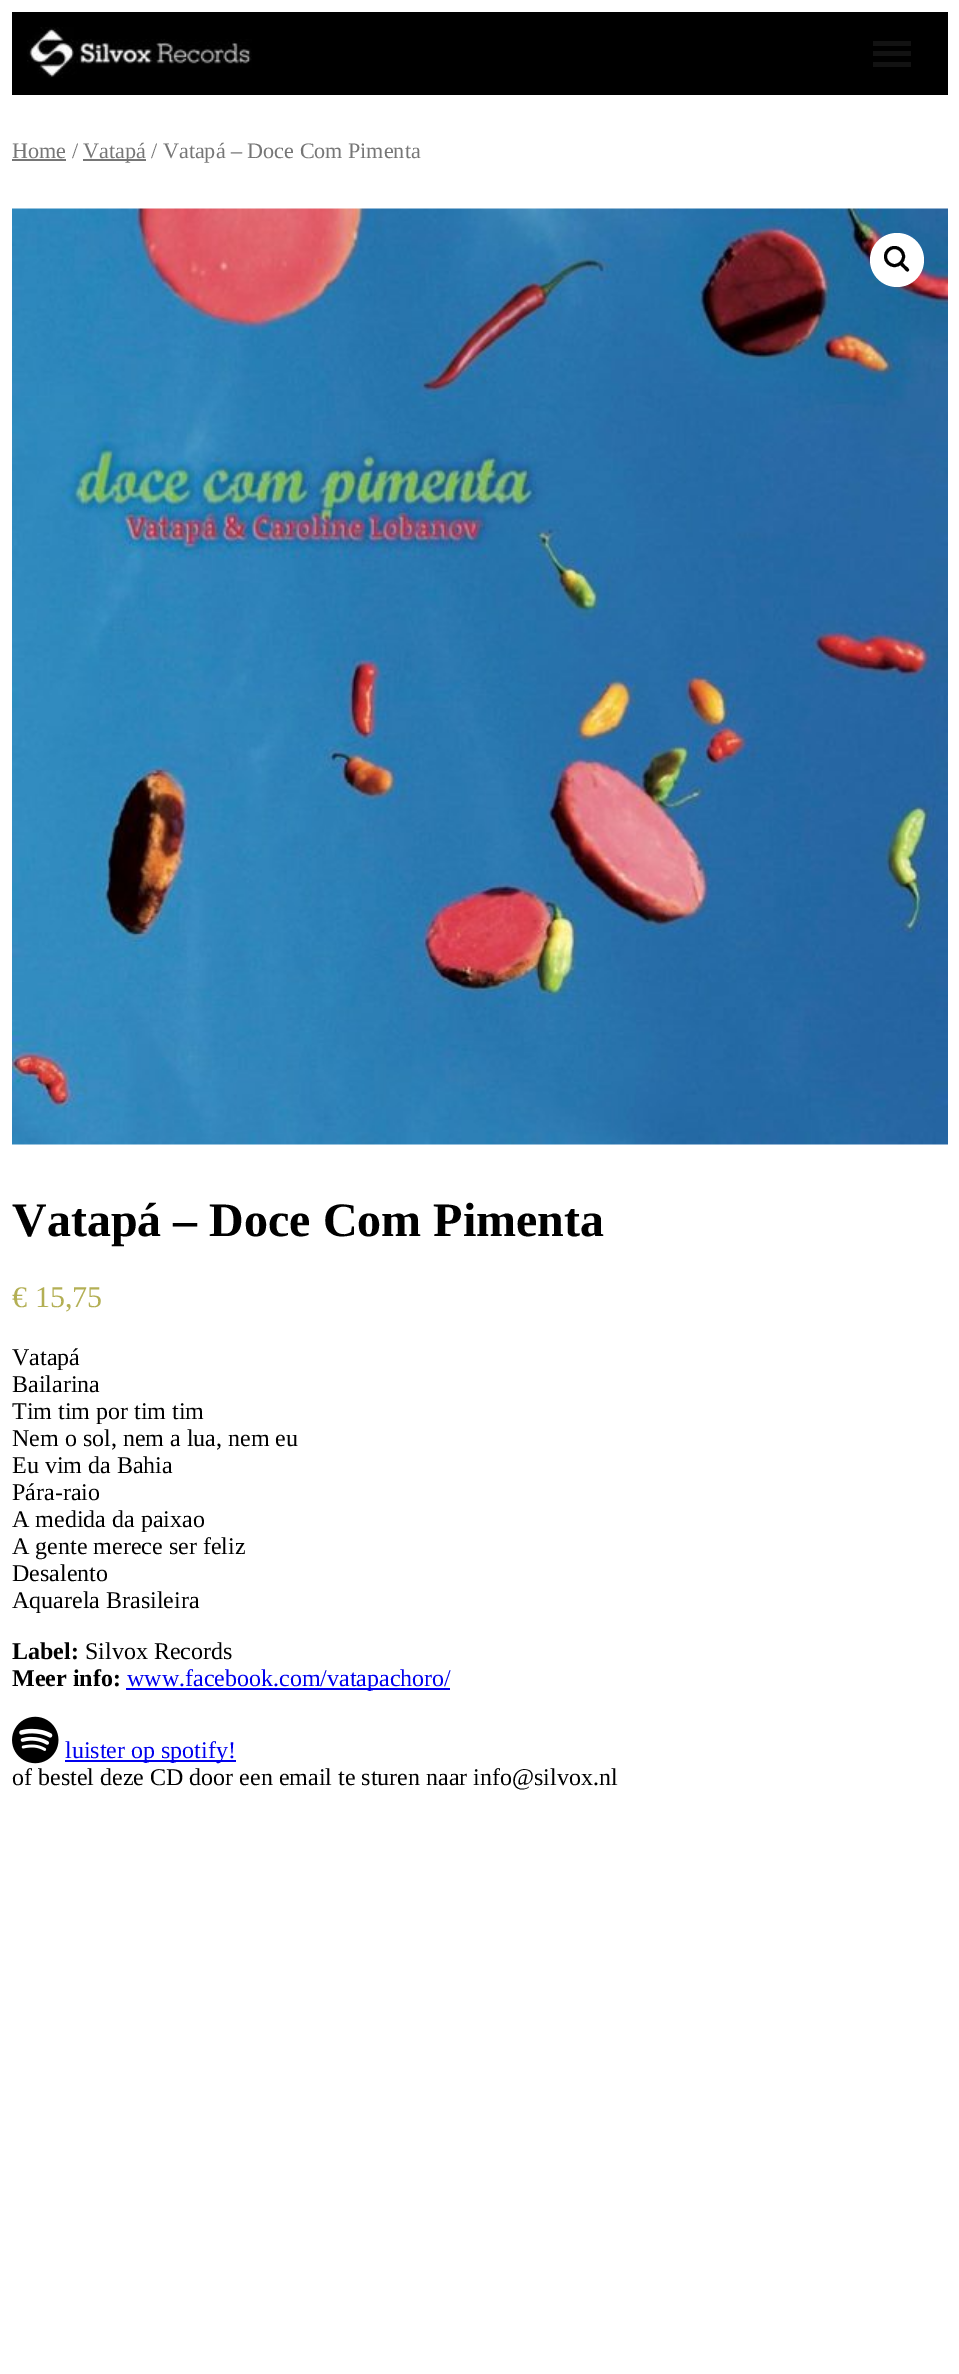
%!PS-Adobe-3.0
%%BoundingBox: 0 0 959 2374
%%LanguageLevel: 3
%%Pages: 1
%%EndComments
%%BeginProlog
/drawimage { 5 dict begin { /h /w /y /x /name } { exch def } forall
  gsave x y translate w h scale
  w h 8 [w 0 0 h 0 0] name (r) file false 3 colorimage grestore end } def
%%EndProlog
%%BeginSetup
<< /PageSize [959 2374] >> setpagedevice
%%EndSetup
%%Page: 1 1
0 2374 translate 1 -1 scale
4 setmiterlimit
1 setgray
0 0 959 2374 rectfill
0 setgray
12 12 936 83 rectfill
(images/1.raw) 27 27 225 51 drawimage
0.071 setgray
873 41 38 5 rectfill
873 51 38 5 rectfill
873 62 38 5 rectfill
0.463 setgray
12 159 54 2 rectfill
83 159 63 2 rectfill
(images/2.raw) 12 208 936 937 drawimage
1 setgray
newpath 897 260 27 0 360 arc closepath fill
0 setgray
3 setlinewidth
newpath 894.5 256.5 9 0 360 arc closepath stroke
newpath 900.5 262.5 moveto 902 261 904.5 265 905.5 266 curveto 906.5 266.5 910.5 269.5 908.5 271 curveto 907 273 904.5 269 903.5 268 curveto 902.5 267 898.5 264.5 900.5 262.5 curveto closepath fill
0 0 0.933 setrgbcolor
126 1688 324 2 rectfill
(images/3.raw) 12 1716 47 48 drawimage
65 1760 171 2 rectfill
/LiberationSerif-Regular [22.1 0 0 -22.1 0 0] selectfont
0.463 setgray
12 158 moveto (Home /) show
83 158 moveto (Vatapá / Vatapá – Doce Com Pimenta) show
/LiberationSerif-Bold [48 0 0 -48 0 0] selectfont
0 setgray
12 1236 moveto (Vatapá – Doce Com Pimenta) show
/LiberationSerif-Regular [30 0 0 -30 0 0] selectfont
0.702 0.686 0.329 setrgbcolor
12 1307 moveto (€ 15,75) show
/LiberationSerif-Regular [24 0 0 -24 0 0] selectfont
0 setgray
12 1365 moveto (Vatapá) show
12 1392 moveto (Bailarina) show
12 1419 moveto (Tim tim por tim tim) show
12 1446 moveto (Nem o sol, nem a lua, nem eu) show
12 1473 moveto (Eu vim da Bahia) show
12 1500 moveto (Pára-raio) show
12 1527 moveto (A medida da paixao) show
12 1554 moveto (A gente merece ser feliz) show
12 1581 moveto (Desalento) show
12 1608 moveto (Aquarela Brasileira) show
/LiberationSerif-Bold [24 0 0 -24 0 0] selectfont
12 1659 moveto (Label:) show
/LiberationSerif-Regular [24 0 0 -24 0 0] selectfont
85 1659 moveto (Silvox Records) show
/LiberationSerif-Bold [24 0 0 -24 0 0] selectfont
12 1686 moveto (Meer info:) show
/LiberationSerif-Regular [24 0 0 -24 0 0] selectfont
0 0 0.933 setrgbcolor
127 1686 moveto (www.facebook.com/vatapachoro/) show
65 1758 moveto (luister op spotify!) show
0 setgray
12 1785 moveto (of bestel deze CD door een email te sturen naar info@silvox.nl) show
showpage
%%EOF
